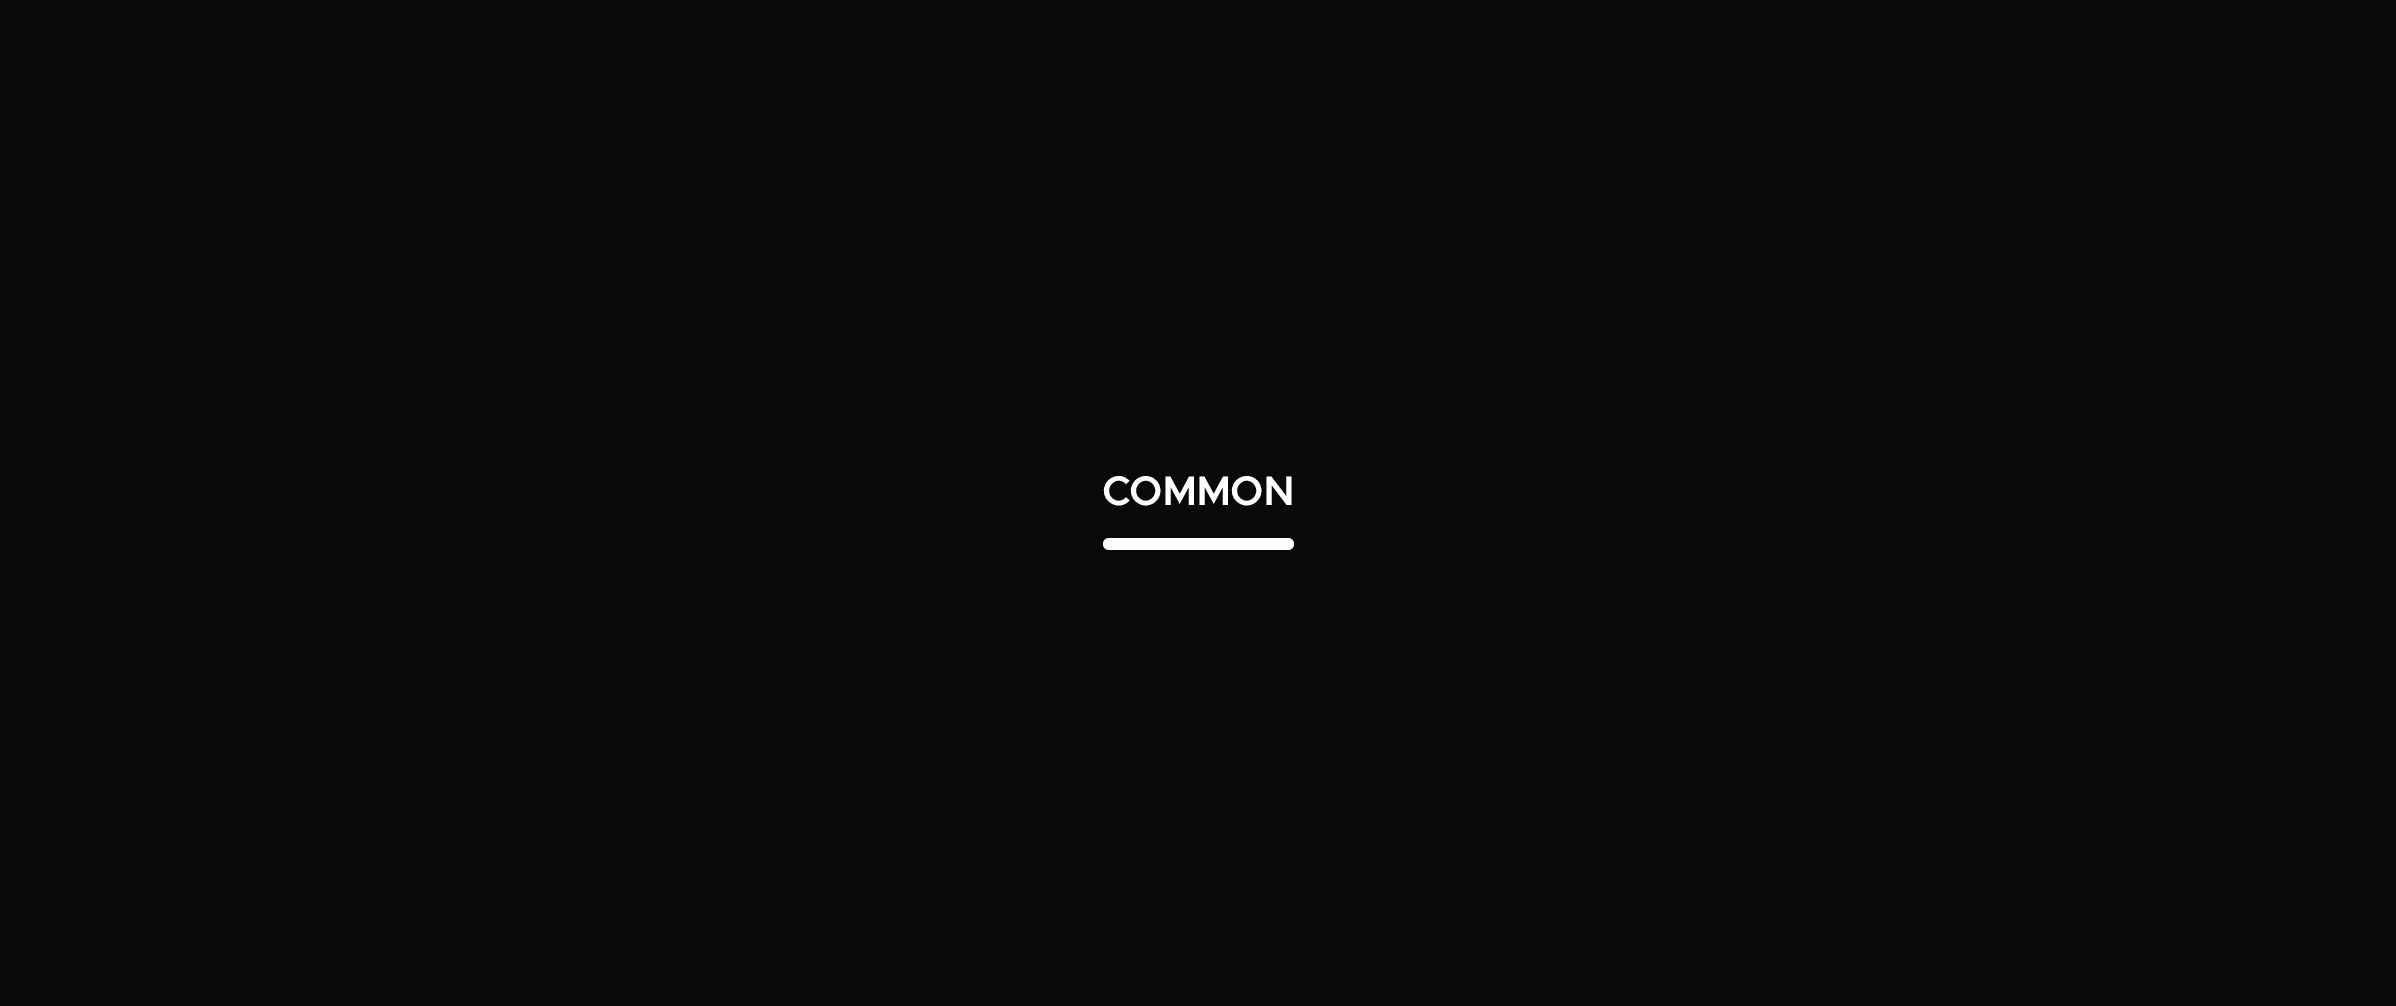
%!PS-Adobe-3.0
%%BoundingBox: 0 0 2396 1006
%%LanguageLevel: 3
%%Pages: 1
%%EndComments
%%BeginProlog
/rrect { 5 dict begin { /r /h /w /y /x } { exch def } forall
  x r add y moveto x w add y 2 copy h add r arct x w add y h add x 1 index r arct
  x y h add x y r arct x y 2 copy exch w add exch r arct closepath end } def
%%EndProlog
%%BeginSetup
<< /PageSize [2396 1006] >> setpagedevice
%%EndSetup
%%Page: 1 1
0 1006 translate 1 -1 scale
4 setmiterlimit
0.035 setgray
0 0 2396 1006 rectfill
1 setgray
1103 538 191 12 6 rrect fill
/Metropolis-Bold [40 0 0 -40 0 0] selectfont
1102 505 moveto (COMMON) show
showpage
%%EOF
